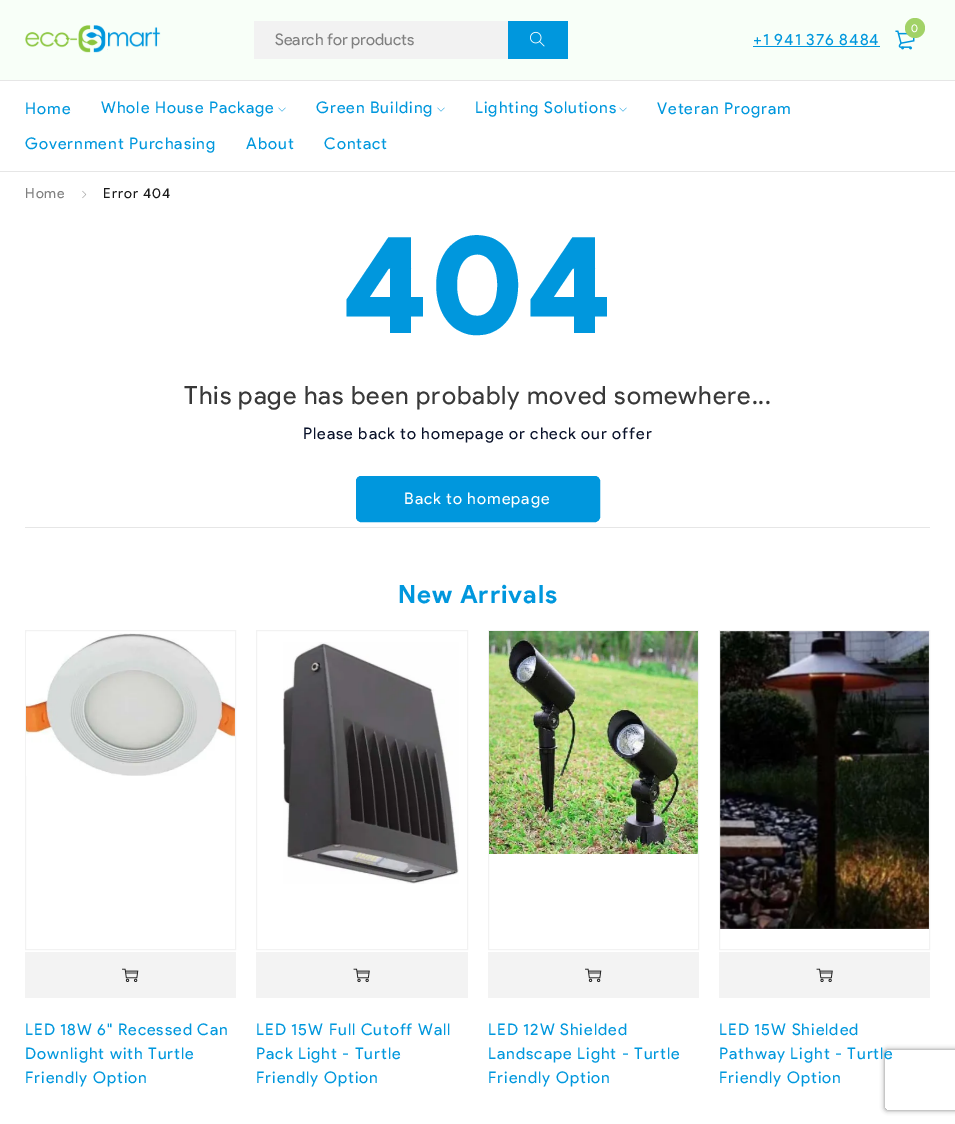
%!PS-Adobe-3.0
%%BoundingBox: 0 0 955 1124
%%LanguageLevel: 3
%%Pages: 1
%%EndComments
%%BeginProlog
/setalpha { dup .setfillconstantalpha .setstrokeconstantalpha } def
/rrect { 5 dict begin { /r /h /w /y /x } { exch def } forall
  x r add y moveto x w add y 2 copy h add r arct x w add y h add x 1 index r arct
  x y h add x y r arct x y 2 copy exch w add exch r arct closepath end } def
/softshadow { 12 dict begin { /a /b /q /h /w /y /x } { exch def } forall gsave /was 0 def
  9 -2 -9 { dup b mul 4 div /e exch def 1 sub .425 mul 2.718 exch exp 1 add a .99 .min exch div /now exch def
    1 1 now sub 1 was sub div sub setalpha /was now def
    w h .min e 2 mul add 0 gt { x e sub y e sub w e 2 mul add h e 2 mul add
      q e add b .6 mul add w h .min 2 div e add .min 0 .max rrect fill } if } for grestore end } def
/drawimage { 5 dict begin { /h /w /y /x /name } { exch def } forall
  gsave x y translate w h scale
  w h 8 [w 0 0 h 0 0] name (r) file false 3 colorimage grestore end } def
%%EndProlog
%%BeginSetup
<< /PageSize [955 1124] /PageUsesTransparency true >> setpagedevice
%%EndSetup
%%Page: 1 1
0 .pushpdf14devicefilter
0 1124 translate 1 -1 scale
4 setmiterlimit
1 setgray
0 0 955 1124 rectfill
0.973 1 0.973 setrgbcolor
0 0 955 80 rectfill
0.902 setgray
0 80 955 1 rectfill
(images/1.raw) 25 25 136 28 drawimage
0.949 setgray
254 21 254 38 rectfill
0 0.592 0.867 setrgbcolor
508 21 60 38 rectfill
(images/2.raw) 530 31 15 16 drawimage
(images/3.raw) 895 30 20 20 drawimage
0.635 0.824 0.404 setrgbcolor
newpath 915 28 10 0 360 arc closepath fill
0 0.592 0.867 setrgbcolor
753 46 127 1 rectfill
0.902 setgray
0 171 955 1 rectfill
(images/4.raw) 278 107 8 5 drawimage
(images/4.raw) 437 107 8 5 drawimage
(images/4.raw) 619 107 8 5 drawimage
(images/5.raw) 82 190 5 9 drawimage
0 0.592 0.867 setrgbcolor
356.5 476.5 243 45 4.5 rrect gsave fill grestore
stroke
0.902 setgray
25 527 905 1 rectfill
0.949 setgray
25.5 630.5 210 319 rectstroke
(images/6.raw) 26 633 209 143 drawimage
0.953 setgray
25 952 211 46 rectfill
(images/7.raw) 122 968 17 14 drawimage
0.949 setgray
256.5 630.5 211 319 rectstroke
(images/8.raw) 283 642 176 242 drawimage
0.953 setgray
256 952 212 46 rectfill
(images/9.raw) 353 968 17 14 drawimage
0.949 setgray
488.5 630.5 210 319 rectstroke
(images/10.raw) 489 631 209 223 drawimage
0.953 setgray
488 952 211 46 rectfill
(images/7.raw) 585 968 17 14 drawimage
0.949 setgray
719.5 630.5 210 319 rectstroke
(images/11.raw) 720 631 209 298 drawimage
0.953 setgray
719 952 211 46 rectfill
(images/9.raw) 816 968 17 14 drawimage
gsave
newpath 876 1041 moveto 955 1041 lineto 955 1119 lineto 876 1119 lineto closepath 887 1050 moveto 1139 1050 lineto 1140 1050 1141 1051 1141 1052 curveto 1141 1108 lineto 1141 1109 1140 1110 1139 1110 curveto 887 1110 lineto 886 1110 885 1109 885 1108 curveto 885 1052 lineto 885 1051 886 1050 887 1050 curveto closepath eoclip newpath
0.502 setgray
885 1050 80 60 2 2.5 1 softshadow
grestore
/ProductSans-Regular [16 0 0 -16 0 0] selectfont
0.502 setgray
275 45 moveto (Search for products) show
/ProductSans-Regular [11 0 0 -11 0 0] selectfont
1 setgray
911 32 moveto 1 0 (0) ashow
/ProductSans-Regular [16 0 0 -16 0 0] selectfont
0 0.592 0.867 setrgbcolor
753 45 moveto 1 0 (+1 941 376 8484) ashow
25 114 moveto 1 0 (Home) ashow
101 113 moveto 1 0 (Whole House Package) ashow
316 113 moveto 1 0 (Green Building) ashow
475 113 moveto 1 0 (Lighting Solutions) ashow
657 114 moveto 1 0 (Veteran Program) ashow
25 149 moveto 1 0 (Government Purchasing) ashow
246 149 moveto 1 0 (About) ashow
324 149 moveto 1 0 (Contact) ashow
/ProductSans-Regular [14 0 0 -14 0 0] selectfont
0.502 setgray
25 198 moveto 1 0 (Home) ashow
0.098 setgray
103 198 moveto 1 0 (Error 404) ashow
/ProductSans-Black [140 0 0 -140 0 0] selectfont
0 0.592 0.867 setrgbcolor
341 333 moveto 1 0 (404) ashow
/ProductSans-Regular [25 0 0 -25 0 0] selectfont
0.22 setgray
184 404 moveto 1 0 (This page has been probably moved somewhere...) ashow
/ProductSans-Regular [16 0 0 -16 0 0] selectfont
0.039 0.071 0.165 setrgbcolor
303 439 moveto 1 0 (Please back to homepage or check our offer) ashow
1 setgray
404 504 moveto 1 0 (Back to homepage) ashow
/ProductSans-Bold [25 0 0 -25 0 0] selectfont
0 0.592 0.867 setrgbcolor
398 603 moveto 1 0 (New Arrivals) ashow
/ProductSans-Regular [16 0 0 -16 0 0] selectfont
25 1035 moveto 1 0 (LED 18W 6" Recessed Can) ashow
25 1059 moveto 1 0 (Downlight with Turtle) ashow
25 1083 moveto 1 0 (Friendly Option) ashow
256 1035 moveto 1 0 (LED 15W Full Cutoff Wall) ashow
256 1059 moveto 1 0 (Pack Light - Turtle) ashow
256 1083 moveto 1 0 (Friendly Option) ashow
488 1035 moveto 1 0 (LED 12W Shielded) ashow
488 1059 moveto 1 0 (Landscape Light - Turtle) ashow
488 1083 moveto 1 0 (Friendly Option) ashow
719 1035 moveto 1 0 (LED 15W Shielded) ashow
719 1059 moveto 1 0 (Pathway Light - Turtle) ashow
719 1083 moveto 1 0 (Friendly Option) ashow
.poppdf14devicefilter showpage
%%EOF
